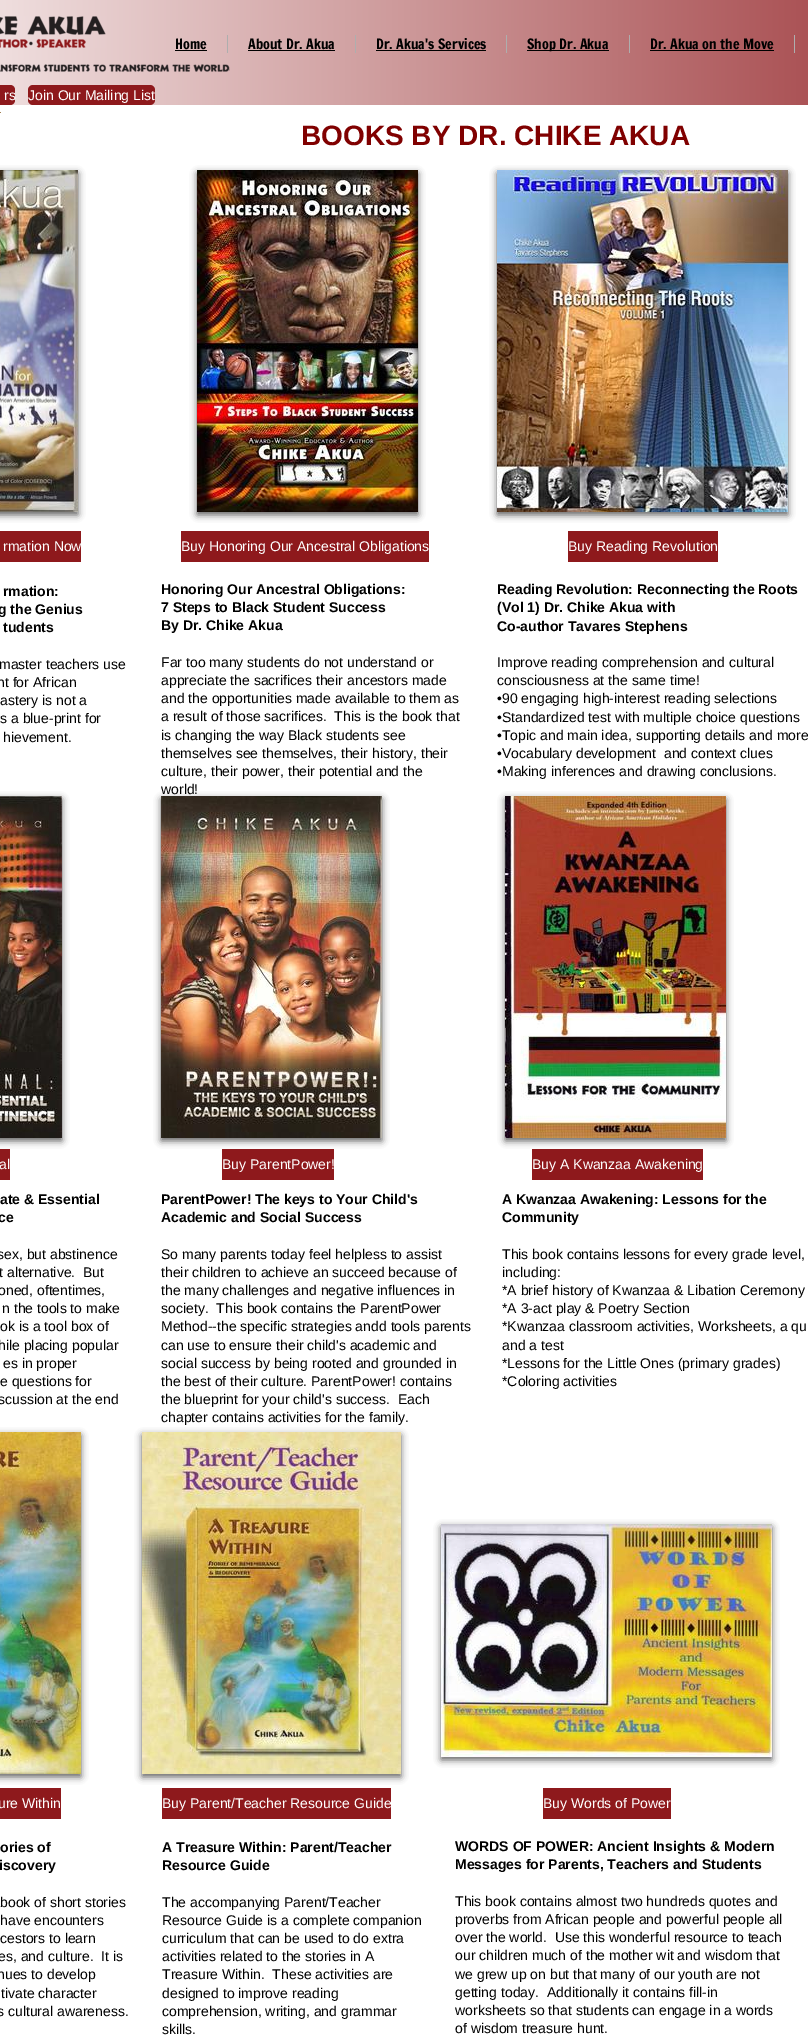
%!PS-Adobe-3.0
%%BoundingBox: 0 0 808 2041
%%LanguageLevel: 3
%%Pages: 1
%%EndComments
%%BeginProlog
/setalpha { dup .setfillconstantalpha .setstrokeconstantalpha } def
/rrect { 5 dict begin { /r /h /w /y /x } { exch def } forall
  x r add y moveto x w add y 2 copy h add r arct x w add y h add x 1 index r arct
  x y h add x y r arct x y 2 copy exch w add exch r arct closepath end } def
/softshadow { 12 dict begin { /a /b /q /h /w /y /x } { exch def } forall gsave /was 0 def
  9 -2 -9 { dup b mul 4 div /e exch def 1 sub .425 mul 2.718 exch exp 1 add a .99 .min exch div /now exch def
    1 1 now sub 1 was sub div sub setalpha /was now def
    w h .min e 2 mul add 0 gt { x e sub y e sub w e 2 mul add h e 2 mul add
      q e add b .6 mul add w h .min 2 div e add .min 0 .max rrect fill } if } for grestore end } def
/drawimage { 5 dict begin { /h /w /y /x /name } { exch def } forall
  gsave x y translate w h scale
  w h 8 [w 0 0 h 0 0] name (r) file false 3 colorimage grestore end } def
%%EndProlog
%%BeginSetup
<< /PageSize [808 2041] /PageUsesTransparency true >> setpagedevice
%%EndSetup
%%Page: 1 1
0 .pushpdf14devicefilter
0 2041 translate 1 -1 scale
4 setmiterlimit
1 setgray
0 0 808 2041 rectfill
gsave newpath 0 0 moveto 808 0 lineto 808 105 lineto 0 105 lineto closepath clip newpath
<< /ShadingType 2 /ColorSpace /DeviceRGB /Coords [-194 214 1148 214] /Extend [true true] /Function << /FunctionType 2 /Domain [0 1] /C0 [1 1 1] /C1 [0.557 0.098 0.11] /N 1 >> >> shfill grestore
(images/1.raw) 0 16 106 32 drawimage
0.682 setgray
227 35 1 18 rectfill
0 setgray
175 50 32 1 rectfill
0.682 setgray
355 35 1 18 rectfill
0 setgray
248 50 87 1 rectfill
0.682 setgray
506 35 1 18 rectfill
0 setgray
376 50 110 1 rectfill
0.682 setgray
629 35 1 18 rectfill
0 setgray
527 50 82 1 rectfill
0.682 setgray
794 35 1 18 rectfill
0 setgray
650 50 124 1 rectfill
(images/2.raw) 0 64 230 8 drawimage
0.557 0.098 0.11 setrgbcolor
newpath 0 85 moveto 10 85 lineto 13 85 15 87 15 90 curveto 15 100 lineto 15 103 13 105 10 105 curveto 0 105 lineto closepath fill
28 85 127 20 5 rrect fill
0.639 0.506 0.329 setrgbcolor
0 112 1 1 rectfill
0.196 setgray
-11 173 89 342 0 3.5 0.75 softshadow
(images/3.raw) 0 170 78 342 drawimage
197 173 221 342 0 3.5 0.75 softshadow
(images/4.raw) 197 170 221 342 drawimage
497 173 291 342 0 3.5 0.75 softshadow
(images/5.raw) 497 170 291 342 drawimage
0.557 0.098 0.11 setrgbcolor
0 531 81 31 rectfill
181 531 248 31 rectfill
568 531 150 31 rectfill
0.196 setgray
-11 799 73 342 0 3.5 0.75 softshadow
(images/6.raw) 0 796 62 342 drawimage
161 799 221 342 0 3.5 0.75 softshadow
(images/7.raw) 161 796 221 342 drawimage
505 799 221 342 0 3.5 0.75 softshadow
(images/8.raw) 505 796 221 342 drawimage
0.557 0.098 0.11 setrgbcolor
0 1149 10 31 rectfill
222 1149 112 31 rectfill
532 1149 171 31 rectfill
0.196 setgray
-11 1435 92 342 0 3.5 0.75 softshadow
(images/9.raw) 0 1432 81 342 drawimage
142 1435 259 342 0 3.5 0.75 softshadow
(images/10.raw) 142 1432 259 342 drawimage
441 1527 331 233 0 3.5 0.75 softshadow
(images/11.raw) 441 1524 331 233 drawimage
0.557 0.098 0.11 setrgbcolor
0 1788 61 31 rectfill
162 1788 229 31 rectfill
543 1788 128 31 rectfill
/FrancoisOne-Regular [14 0 0 -14 0 0] selectfont
0 setgray
175 49 moveto (Home) show
248 49 moveto (About Dr. Akua) show
376 49 moveto (Dr. Akua's Services) show
527 49 moveto (Shop Dr. Akua) show
650 49 moveto (Dr. Akua on the Move) show
/LiberationSans-Regular [14 0 0 -14 0 0] selectfont
1 setgray
4 100 moveto (rs) show
28 100 moveto (Join Our Mailing List) show
/LiberationSans-Bold [28 0 0 -28 0 0] selectfont
0.502 0 0 setrgbcolor
301 145 moveto (BOOKS BY DR. CHIKE AKUA) show
/LiberationSans-Regular [14 0 0 -14 0 0] selectfont
1 setgray
3 551 moveto (rmation Now) show
181 551 moveto (Buy Honoring Our Ancestral Obligations) show
568 551 moveto (Buy Reading Revolution) show
/LiberationSans-Bold [14 0 0 -14 0 0] selectfont
0 setgray
3 596 moveto (rmation:) show
-2 614 moveto (g the Genius) show
3 632 moveto (tudents) show
/LiberationSans-Regular [14 0 0 -14 0 0] selectfont
-1 669 moveto (master teachers use) show
-3 687 moveto (nt for African) show
0 705 moveto (astery is not a) show
0 723 moveto (s a blue-print for) show
3 742 moveto (hievement.) show
/LiberationSans-Bold [14 0 0 -14 0 0] selectfont
161 594 moveto (Honoring Our Ancestral Obligations:) show
161 612 moveto (7 Steps to Black Student Success) show
161 630 moveto (By Dr. Chike Akua) show
/LiberationSans-Regular [14 0 0 -14 0 0] selectfont
161 667 moveto (Far too many students do not understand or) show
161 685 moveto (appreciate the sacrifices their ancestors made) show
161 703 moveto (and the opportunities made available to them as) show
161 721 moveto (a result of those sacrifices.  This is the book that) show
161 740 moveto (is changing the way Black students see) show
161 758 moveto (themselves see themselves, their history, their) show
161 776 moveto (culture, their power, their potential and the) show
161 794 moveto (world!) show
/LiberationSans-Bold [14 0 0 -14 0 0] selectfont
497 594 moveto (Reading Revolution: Reconnecting the Roots) show
497 612 moveto (\(Vol 1\) Dr. Chike Akua with) show
497 631 moveto (Co-author Tavares Stephens) show
/LiberationSans-Regular [14 0 0 -14 0 0] selectfont
497 667 moveto (Improve reading comprehension and cultural) show
497 685 moveto (consciousness at the same time!) show
497 703 moveto (•90 engaging high-interest reading selections) show
497 722 moveto (•Standardized test with multiple choice questions) show
497 740 moveto (•Topic and main idea, supporting details and more) show
497 758 moveto (•Vocabulary development  and context clues) show
497 776 moveto (•Making inferences and drawing conclusions.) show
1 setgray
-1 1169 moveto (al) show
222 1169 moveto (Buy ParentPower!) show
532 1169 moveto (Buy A Kwanzaa Awakening) show
/LiberationSans-Bold [14 0 0 -14 0 0] selectfont
0 setgray
0 1204 moveto (ate & Essential) show
-2 1222 moveto (ce) show
/LiberationSans-Regular [14 0 0 -14 0 0] selectfont
-3 1259 moveto (sex, but abstinence) show
-1 1277 moveto (t alternative.  But) show
-2 1295 moveto (oned, oftentimes,) show
2 1313 moveto (n the tools to make) show
0 1331 moveto (ok is a tool box of) show
-2 1350 moveto (hile placing popular) show
3 1368 moveto (es in proper) show
0 1386 moveto (e questions for) show
-2 1404 moveto (scussion at the end) show
/LiberationSans-Bold [14 0 0 -14 0 0] selectfont
161 1204 moveto (ParentPower! The keys to Your Child's) show
161 1222 moveto (Academic and Social Success) show
/LiberationSans-Regular [14 0 0 -14 0 0] selectfont
161 1259 moveto (So many parents today feel helpless to assist) show
161 1277 moveto (their children to achieve an succeed because of) show
161 1295 moveto (the many challenges and negative influences in) show
161 1313 moveto (society.  This book contains the ParentPower) show
161 1331 moveto (Method--the specific strategies andd tools parents) show
161 1350 moveto (can use to ensure their child's academic and) show
161 1368 moveto (social success by being rooted and grounded in) show
161 1386 moveto (the best of their culture. ParentPower! contains) show
161 1404 moveto (the blueprint for your child's success.  Each) show
161 1422 moveto (chapter contains activities for the family.) show
/LiberationSans-Bold [14 0 0 -14 0 0] selectfont
502 1204 moveto (A Kwanzaa Awakening: Lessons for the) show
502 1222 moveto (Community) show
/LiberationSans-Regular [14 0 0 -14 0 0] selectfont
502 1259 moveto (This book contains lessons for every grade level,) show
502 1277 moveto (including:) show
502 1295 moveto (*A brief history of Kwanzaa & Libation Ceremony) show
502 1313 moveto (*A 3-act play & Poetry Section) show
502 1331 moveto (*Kwanzaa classroom activities, Worksheets, a qu) show
502 1350 moveto (and a test) show
502 1368 moveto (*Lessons for the Little Ones \(primary grades\)) show
502 1386 moveto (*Coloring activities) show
1 setgray
-2 1808 moveto (ure Within) show
162 1808 moveto (Buy Parent/Teacher Resource Guide) show
543 1808 moveto (Buy Words of Power) show
/LiberationSans-Bold [14 0 0 -14 0 0] selectfont
0 setgray
0 1852 moveto (ories of) show
-1 1870 moveto (iscovery) show
/LiberationSans-Regular [14 0 0 -14 0 0] selectfont
0 1907 moveto (book of short stories) show
0 1925 moveto (have encounters) show
0 1943 moveto (cestors to learn) show
-2 1961 moveto (es, and culture.  It is) show
-3 1979 moveto (nues to develop) show
1 1998 moveto (tivate character) show
-3 2016 moveto (s cultural awareness.) show
/LiberationSans-Bold [14 0 0 -14 0 0] selectfont
162 1852 moveto (A Treasure Within: Parent/Teacher) show
162 1870 moveto (Resource Guide) show
/LiberationSans-Regular [14 0 0 -14 0 0] selectfont
162 1907 moveto (The accompanying Parent/Teacher) show
162 1925 moveto (Resource Guide is a complete companion) show
162 1943 moveto (curriculum that can be used to do extra) show
162 1961 moveto (activities related to the stories in A) show
162 1979 moveto (Treasure Within.  These activities are) show
162 1998 moveto (designed to improve reading) show
162 2016 moveto (comprehension, writing, and grammar) show
162 2034 moveto (skills.) show
/LiberationSans-Bold [14 0 0 -14 0 0] selectfont
455 1851 moveto (WORDS OF POWER: Ancient Insights & Modern) show
455 1869 moveto (Messages for Parents, Teachers and Students) show
/LiberationSans-Regular [14 0 0 -14 0 0] selectfont
455 1906 moveto (This book contains almost two hundreds quotes and) show
455 1924 moveto (proverbs from African people and powerful people all) show
455 1942 moveto (over the world.  Use this wonderful resource to teach) show
455 1960 moveto (our children much of the mother wit and wisdom that) show
455 1979 moveto (we grew up on but that many of our youth are not) show
455 1997 moveto (getting today.  Additionally it contains fill-in) show
455 2015 moveto (worksheets so that students can engage in a words) show
455 2033 moveto (of wisdom treasure hunt.) show
.poppdf14devicefilter showpage
%%EOF
